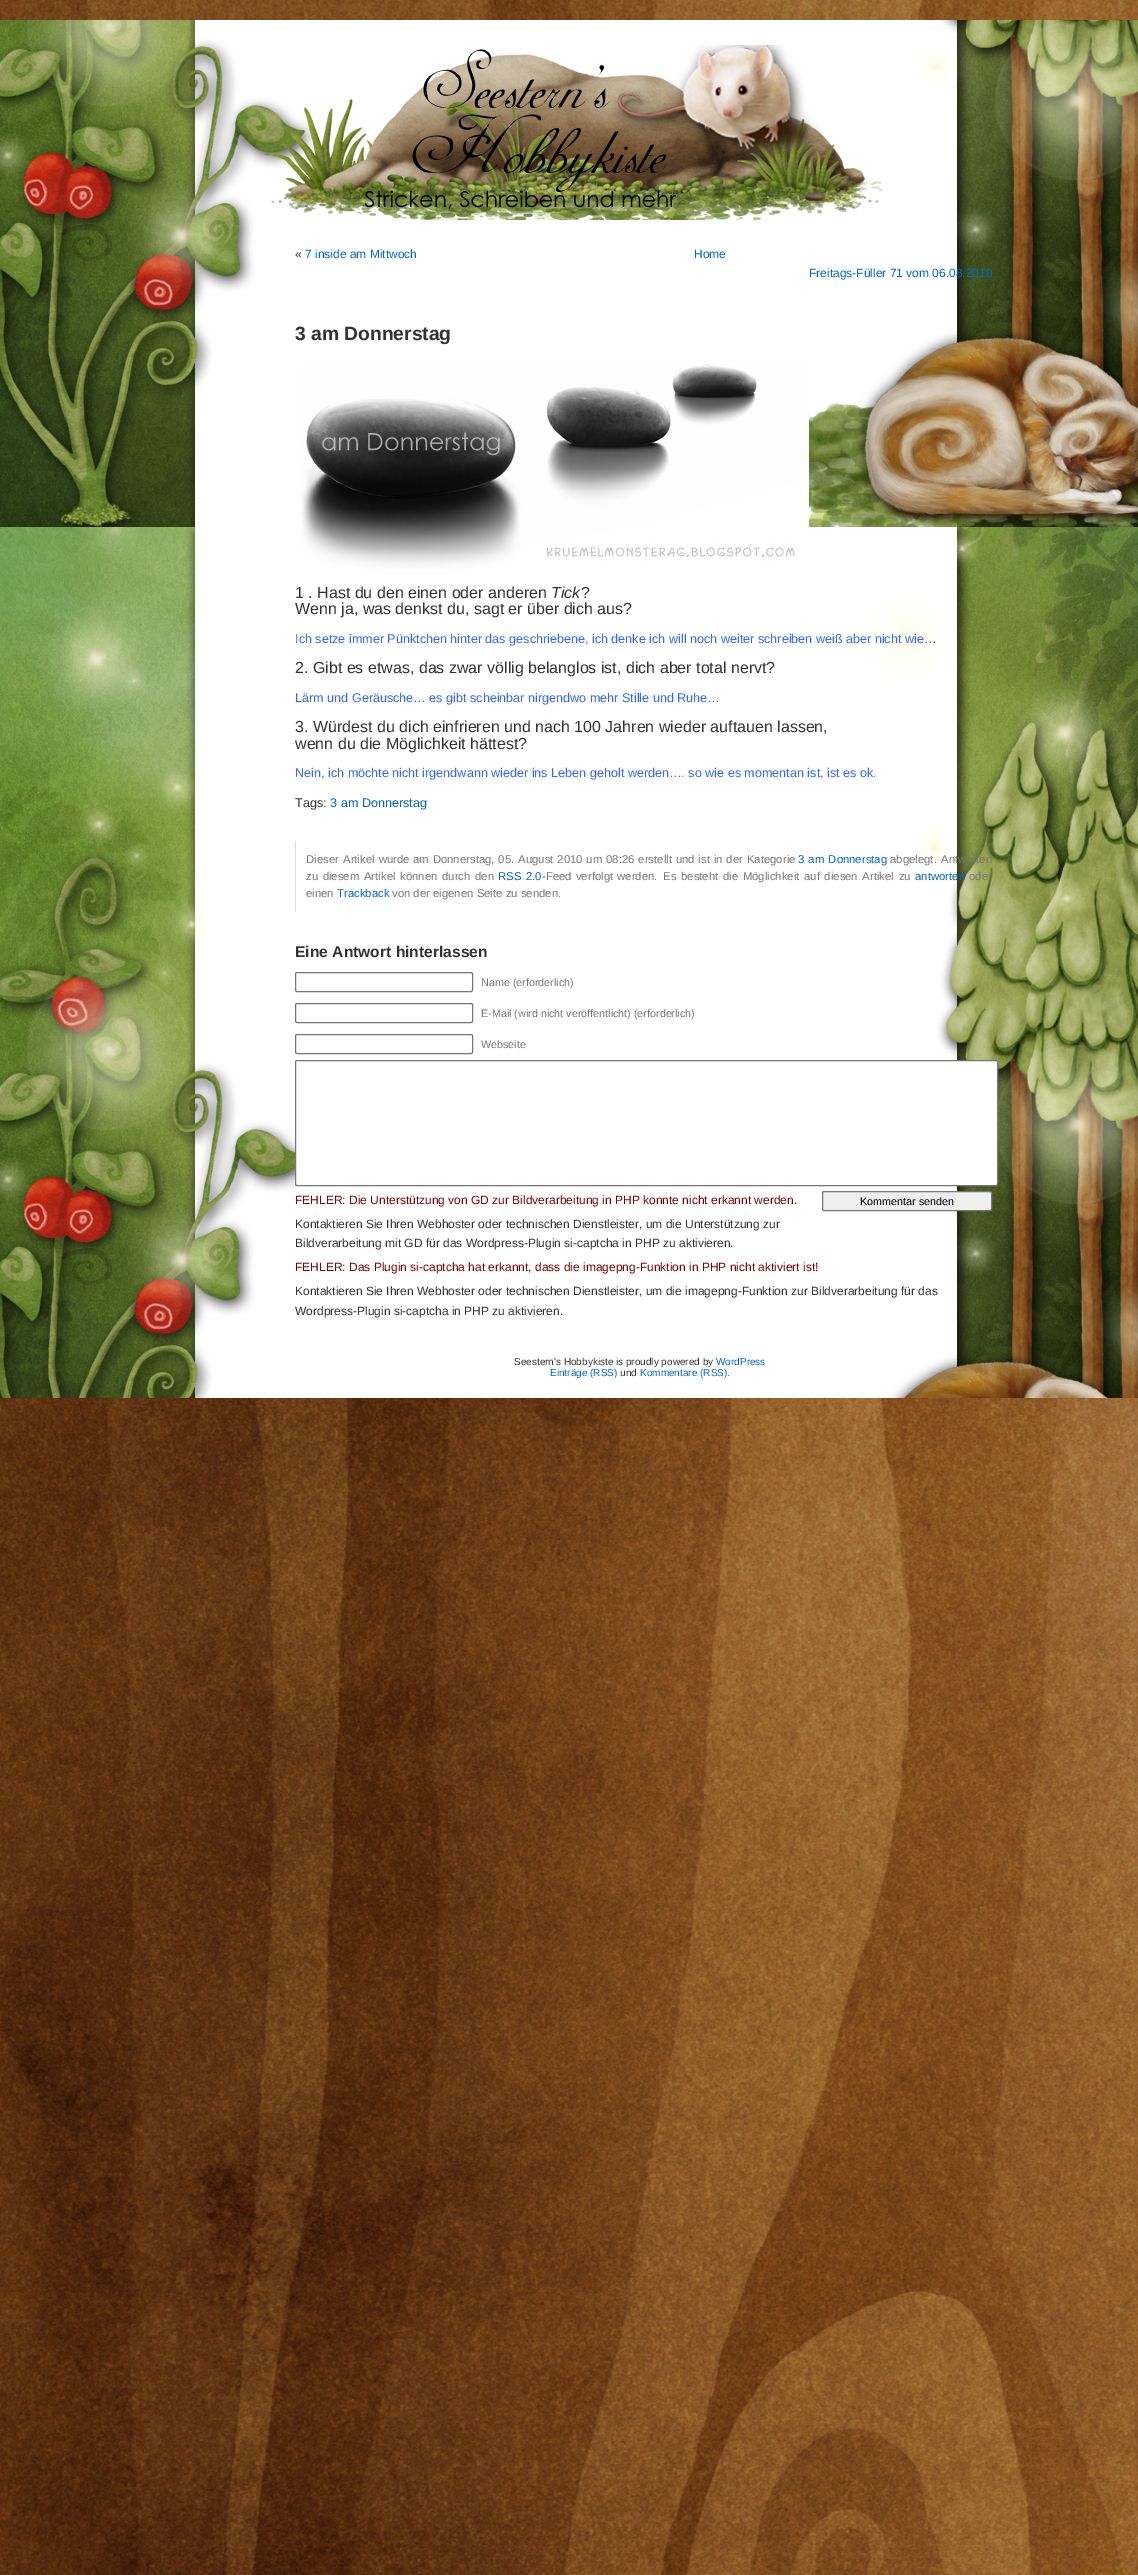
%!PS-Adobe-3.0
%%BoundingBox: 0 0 1138 2575
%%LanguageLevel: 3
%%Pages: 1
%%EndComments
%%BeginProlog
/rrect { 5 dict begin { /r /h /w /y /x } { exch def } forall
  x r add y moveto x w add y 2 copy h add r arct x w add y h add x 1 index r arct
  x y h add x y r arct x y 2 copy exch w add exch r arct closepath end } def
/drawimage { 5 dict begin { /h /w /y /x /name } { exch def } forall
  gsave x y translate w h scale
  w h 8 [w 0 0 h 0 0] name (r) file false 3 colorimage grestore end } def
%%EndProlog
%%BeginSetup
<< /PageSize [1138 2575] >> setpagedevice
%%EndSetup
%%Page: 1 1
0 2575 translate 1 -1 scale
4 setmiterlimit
1 setgray
0 0 1138 2575 rectfill
(images/1.raw) 0 0 1138 2575 drawimage
(images/2.raw) 0 20 1138 1378 drawimage
(images/3.raw) 264 45 620 175 drawimage
(images/4.raw) 301 364 508 205 drawimage
0.867 setgray
295 841 1 71 rectfill
0.463 setgray
295.5 972.5 177 19 1.5 rrect stroke
295.5 1003.5 177 19 1.5 rrect stroke
295.5 1034.5 177 19 1.5 rrect stroke
1 setgray
295.5 1060.5 702 125 1.5 rrect gsave fill grestore
0.463 setgray
stroke
0.937 setgray
822.5 1191.5 169 19 1.5 rrect gsave fill grestore
0.463 setgray
stroke
/LiberationSans-Regular [12 0 0 -12 0 0] selectfont
0.2 setgray
295 258 moveto («) show
0 0.4 0.8 setrgbcolor
305 258 moveto (7 inside am Mittwoch) show
694 258 moveto (Home) show
809 277 moveto (Freitags-Füller 71 vom 06.08.2010) show
/LiberationSans-Bold [19.25 0 0 -19.25 0 0] selectfont
0.2 setgray
295 340 moveto (3 am Donnerstag) show
/LiberationSans-Regular [16 0 0 -16 0 0] selectfont
295 598 moveto (1 . Hast du den einen oder anderen) show
/LiberationSans-Italic [16 0 0 -16 0 0] selectfont
551 598 moveto (Tick) show
/LiberationSans-Regular [16 0 0 -16 0 0] selectfont
581 598 moveto (?) show
295 614 moveto (Wenn ja, was denkst du, sagt er über dich aus?) show
/LiberationSans-Regular [12.6 0 0 -12.6 0 0] selectfont
0.2 0.4 1 setrgbcolor
295 643 moveto (Ich setze immer Pünktchen hinter das geschriebene, ich denke ich will noch weiter schreiben weiß aber nicht wie…) show
/LiberationSans-Regular [16 0 0 -16 0 0] selectfont
0.2 setgray
295 673 moveto (2. Gibt es etwas, das zwar völlig belanglos ist, dich aber total nervt?) show
/LiberationSans-Regular [12.6 0 0 -12.6 0 0] selectfont
0.2 0.4 1 setrgbcolor
295 702 moveto (Lärm und Geräusche… es gibt scheinbar nirgendwo mehr Stille und Ruhe…) show
/LiberationSans-Regular [16 0 0 -16 0 0] selectfont
0.2 setgray
295 732 moveto (3. Würdest du dich einfrieren und nach 100 Jahren wieder auftauen lassen,) show
295 749 moveto (wenn du die Möglichkeit hättest?) show
/LiberationSans-Regular [12.6 0 0 -12.6 0 0] selectfont
0.2 0.4 1 setrgbcolor
295 777 moveto (Nein, ich möchte nicht irgendwann wieder ins Leben geholt werden…. so wie es momentan ist, ist es ok.) show
0.2 setgray
295 807 moveto (Tags:) show
0 0.4 0.8 setrgbcolor
330 807 moveto (3 am Donnerstag) show
/LiberationSans-Regular [11.35 0 0 -11.35 0 0] selectfont
0.467 setgray
306 863 moveto 1 0 32 (Dieser Artikel wurde) widthshow
413 863 moveto 0.75 0 32 (am Donnerstag, 05. August 2010 um 08:26 erstellt und ist in der Kategorie) widthshow
0 0.4 0.8 setrgbcolor
798 863 moveto 1 0 32 (3 am Donnerstag) widthshow
0.467 setgray
890 863 moveto (abgelegt.) show
941 863 moveto (Antworten) show
306 880 moveto 1.5 0 32 (zu diesem Artikel können durch den) widthshow
0 0.4 0.8 setrgbcolor
498 880 moveto 1.5 0 32 (RSS 2.0) widthshow
0.467 setgray
542 880 moveto 1 0 32 (-Feed verfolgt werden.) widthshow
663 880 moveto 1.5 0 32 (Es besteht die Möglichkeit auf diesen Artikel zu) widthshow
0 0.4 0.8 setrgbcolor
915 880 moveto (antworten) show
0.467 setgray
969 880 moveto (oder) show
306 897 moveto (einen) show
0 0.4 0.8 setrgbcolor
337 897 moveto (Trackback) show
0.467 setgray
392 897 moveto (von der eigenen Seite zu senden.) show
/LiberationSans-Bold [15.6 0 0 -15.6 0 0] selectfont
0.2 setgray
295 957 moveto (Eine Antwort hinterlassen) show
/LiberationSans-Regular [10.75 0 0 -10.75 0 0] selectfont
0.467 setgray
481 986 moveto (Name \(erforderlich\)) show
481 1017 moveto (E-Mail \(wird nicht veröffentlicht\) \(erforderlich\)) show
481 1048 moveto (Webseite) show
/LiberationSans-Regular [12 0 0 -12 0 0] selectfont
0.502 0 0 setrgbcolor
295 1204 moveto (FEHLER: Die Unterstützung von GD zur Bildverarbeitung in PHP konnte nicht erkannt werden.) show
0.2 setgray
295 1228 moveto (Kontaktieren Sie Ihren Webhoster oder technischen Dienstleister, um die Unterstützung zur) show
295 1247 moveto (Bildverarbeitung mit GD für das Wordpress-Plugin si-captcha in PHP zu aktivieren.) show
0.502 0 0 setrgbcolor
295 1271 moveto (FEHLER: Das Plugin si-captcha hat erkannt, dass die imagepng-Funktion in PHP nicht aktiviert ist!) show
0.2 setgray
295 1295 moveto (Kontaktieren Sie Ihren Webhoster oder technischen Dienstleister, um die imagepng-Funktion zur Bildverarbeitung für das) show
295 1315 moveto (Wordpress-Plugin si-captcha in PHP zu aktivieren.) show
/LiberationSans-Regular [10.75 0 0 -10.75 0 0] selectfont
0 setgray
860 1205 moveto (Kommentar senden) show
/LiberationSans-Regular [10 0 0 -10 0 0] selectfont
0.2 setgray
514 1365 moveto (Seestern's Hobbykiste is proudly powered by) show
0 0.4 0.8 setrgbcolor
716 1365 moveto (WordPress) show
550 1376 moveto (Einträge \(RSS\)) show
0.2 setgray
620 1376 moveto (und) show
0 0.4 0.8 setrgbcolor
640 1376 moveto (Kommentare \(RSS\)) show
0.2 setgray
727 1376 moveto (.) show
showpage
%%EOF
